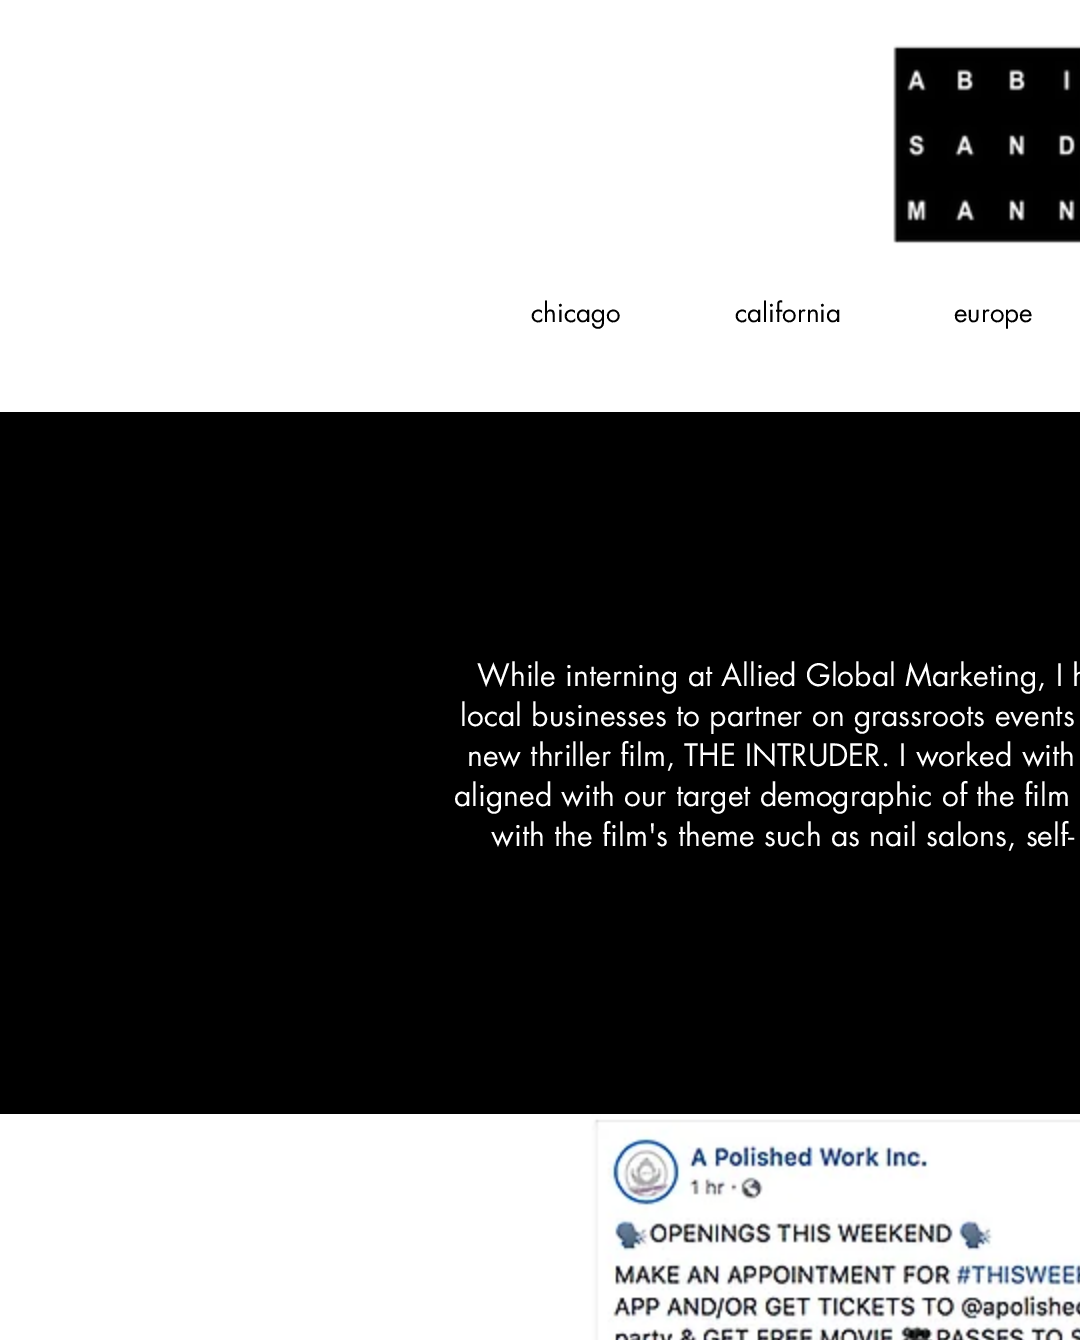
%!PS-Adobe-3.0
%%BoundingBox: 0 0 1080 1340
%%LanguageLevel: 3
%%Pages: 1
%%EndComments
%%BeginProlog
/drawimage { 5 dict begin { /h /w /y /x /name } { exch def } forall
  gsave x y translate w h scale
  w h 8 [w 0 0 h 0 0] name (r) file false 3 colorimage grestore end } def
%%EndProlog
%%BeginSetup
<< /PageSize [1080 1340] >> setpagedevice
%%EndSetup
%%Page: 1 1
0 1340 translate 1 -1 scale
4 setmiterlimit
1 setgray
0 0 1080 1340 rectfill
(images/1.raw) 893 45 187 199 drawimage
0 setgray
0 412 1080 702 rectfill
(images/2.raw) 0 1114 1080 226 drawimage
/futura-Regular [26 0 0 -26 0 0] selectfont
531 322 moveto (chicago) show
735 322 moveto (california) show
954 322 moveto (europe) show
/futura-Regular [30 0 0 -30 0 0] selectfont
1 setgray
477 686 moveto (While interning at Allied Global Marketing, I h) show
460 726 moveto (local businesses to partner on grassroots events) show
467 766 moveto (new thriller film, THE INTRUDER. I worked with) show
454 806 moveto (aligned with our target demographic of the film) show
491 846 moveto (with the film's theme such as nail salons, self-) show
showpage
%%EOF
